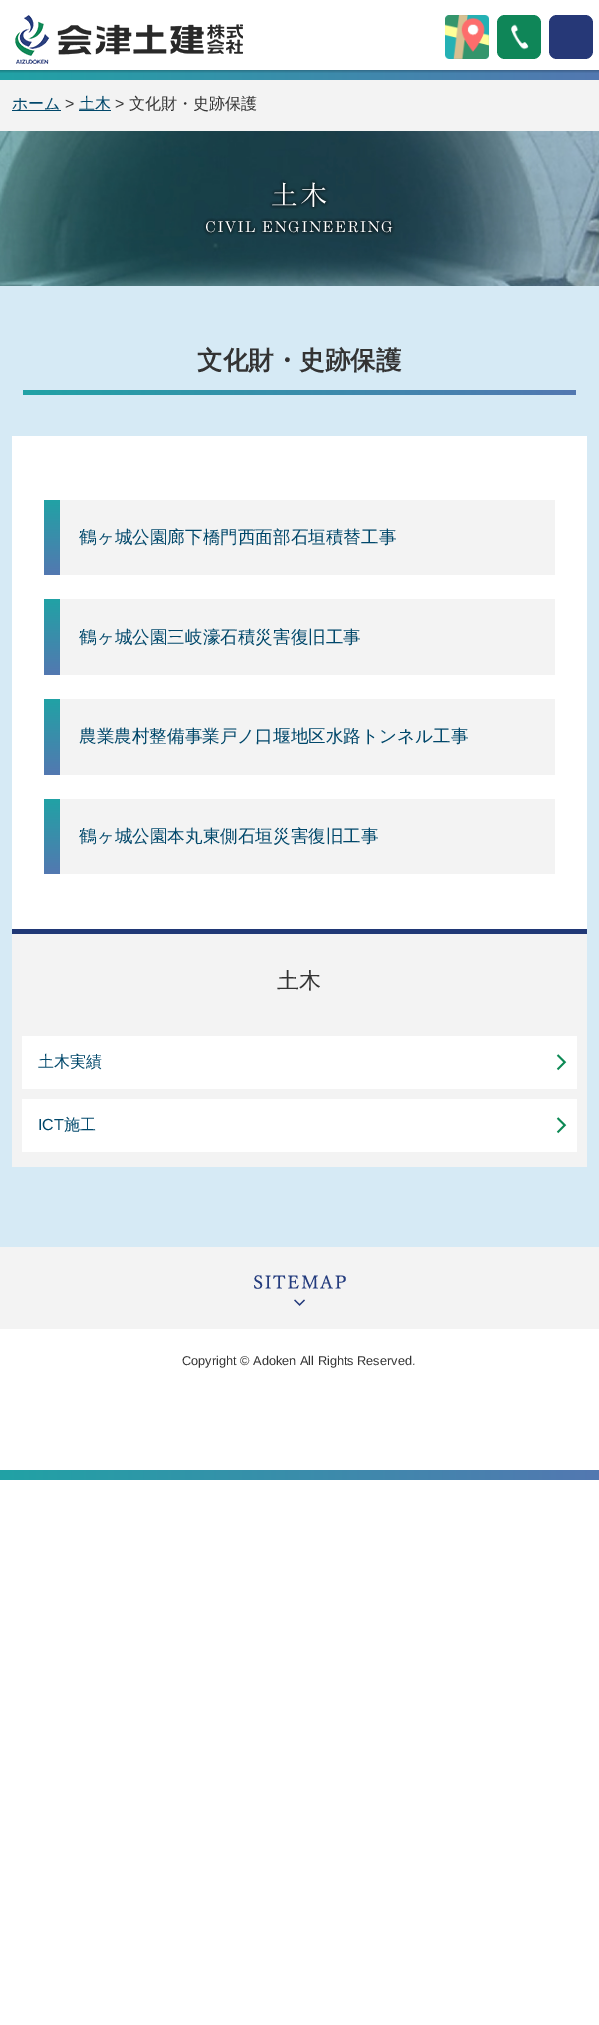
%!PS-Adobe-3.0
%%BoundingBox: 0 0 599 2025
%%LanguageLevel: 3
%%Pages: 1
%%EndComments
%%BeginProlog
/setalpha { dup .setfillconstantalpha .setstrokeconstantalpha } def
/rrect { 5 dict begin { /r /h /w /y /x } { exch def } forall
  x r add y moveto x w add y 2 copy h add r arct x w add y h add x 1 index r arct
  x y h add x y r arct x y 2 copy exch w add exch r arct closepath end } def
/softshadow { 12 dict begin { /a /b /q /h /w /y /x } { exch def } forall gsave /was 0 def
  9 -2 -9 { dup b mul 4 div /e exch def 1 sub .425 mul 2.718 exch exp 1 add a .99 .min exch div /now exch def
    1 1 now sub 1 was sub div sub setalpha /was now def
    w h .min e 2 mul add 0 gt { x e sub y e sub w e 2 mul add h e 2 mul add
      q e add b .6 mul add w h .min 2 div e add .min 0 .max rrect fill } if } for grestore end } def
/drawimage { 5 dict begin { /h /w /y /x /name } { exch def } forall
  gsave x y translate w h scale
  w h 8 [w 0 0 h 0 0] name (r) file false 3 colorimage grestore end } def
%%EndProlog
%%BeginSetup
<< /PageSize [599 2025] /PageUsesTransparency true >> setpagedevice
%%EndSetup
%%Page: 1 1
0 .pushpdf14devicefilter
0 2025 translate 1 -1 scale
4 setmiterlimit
1 setgray
0 0 599 2025 rectfill
gsave newpath 0 70 moveto 599 70 lineto 599 80 lineto 0 80 lineto closepath clip newpath
<< /ShadingType 2 /ColorSpace /DeviceRGB /Coords [0 75 599 75] /Extend [true true] /Function << /FunctionType 2 /Domain [0 1] /C0 [0.129 0.635 0.647] /C1 [0.325 0.471 0.694] /N 1 >> >> shfill grestore
gsave
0 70 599 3 rectclip
0 setgray
-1 -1 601 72 0 1.5 0.3 softshadow
grestore
(images/1.raw) 15 15 228 49 drawimage
(images/2.raw) 445 15 44 44 drawimage
0.059 0.525 0.345 setrgbcolor
497 15 44 44 8 rrect fill
(images/3.raw) 511 24 18 26 drawimage
0.149 0.22 0.467 setrgbcolor
549 15 44 44 8 rrect fill
0.839 0.918 0.961 setrgbcolor
0 286 599 961 rectfill
0.953 setgray
0 80 599 51 rectfill
0 0.278 0.416 setrgbcolor
12 110 49 1 rectfill
79 110 32 1 rectfill
(images/4.raw) 0 131 599 155 drawimage
(images/5.raw) 203 179 192 57 drawimage
1 setgray
12 436 575 493 rectfill
gsave newpath 23 390 moveto 576 390 lineto 576 395 lineto 23 395 lineto closepath clip newpath
<< /ShadingType 2 /ColorSpace /DeviceRGB /Coords [23 393 576 393] /Extend [true true] /Function << /FunctionType 2 /Domain [0 1] /C0 [0.129 0.635 0.647] /C1 [0.325 0.471 0.694] /N 1 >> >> shfill grestore
0.953 setgray
60 500 495 75 rectfill
gsave newpath 44 500 moveto 60 500 lineto 60 575 lineto 44 575 lineto closepath clip newpath
<< /ShadingType 2 /ColorSpace /DeviceRGB /Coords [52 500 52 575] /Extend [true true] /Function << /FunctionType 2 /Domain [0 1] /C0 [0.129 0.635 0.647] /C1 [0.325 0.471 0.694] /N 1 >> >> shfill grestore
60 599 495 76 rectfill
gsave newpath 44 599 moveto 60 599 lineto 60 675 lineto 44 675 lineto closepath clip newpath
<< /ShadingType 2 /ColorSpace /DeviceRGB /Coords [52 599 52 675] /Extend [true true] /Function << /FunctionType 2 /Domain [0 1] /C0 [0.129 0.635 0.647] /C1 [0.325 0.471 0.694] /N 1 >> >> shfill grestore
60 699 495 76 rectfill
gsave newpath 44 699 moveto 60 699 lineto 60 775 lineto 44 775 lineto closepath clip newpath
<< /ShadingType 2 /ColorSpace /DeviceRGB /Coords [52 699 52 775] /Extend [true true] /Function << /FunctionType 2 /Domain [0 1] /C0 [0.129 0.635 0.647] /C1 [0.325 0.471 0.694] /N 1 >> >> shfill grestore
60 799 495 75 rectfill
gsave newpath 44 799 moveto 60 799 lineto 60 874 lineto 44 874 lineto closepath clip newpath
<< /ShadingType 2 /ColorSpace /DeviceRGB /Coords [52 799 52 874] /Extend [true true] /Function << /FunctionType 2 /Domain [0 1] /C0 [0.129 0.635 0.647] /C1 [0.325 0.471 0.694] /N 1 >> >> shfill grestore
12 934 575 233 rectfill
0.125 0.22 0.463 setrgbcolor
12 929 575 5 rectfill
1 setgray
22 1036 555 53 rectfill
(images/6.raw) 556 1054 11 17 drawimage
22 1099 555 53 rectfill
(images/6.raw) 556 1117 11 17 drawimage
0.953 setgray
0 1247 599 82 rectfill
(images/7.raw) 254 1275 92 14 drawimage
(images/8.raw) 294 1299 11 7 drawimage
gsave newpath 0 1470 moveto 599 1470 lineto 599 1480 lineto 0 1480 lineto closepath clip newpath
<< /ShadingType 2 /ColorSpace /DeviceRGB /Coords [0 1475 599 1475] /Extend [true true] /Function << /FunctionType 2 /Domain [0 1] /C0 [0.129 0.635 0.647] /C1 [0.325 0.471 0.694] /N 1 >> >> shfill grestore
/WenQuanYiZenHei-Medium [16 0 0 -16 0 0] selectfont
0 0.278 0.416 setrgbcolor
12 109 moveto (ホーム) show
/LiberationSans-Regular [16 0 0 -16 0 0] selectfont
0.2 setgray
65 109 moveto (>) show
/WenQuanYiZenHei-Medium [16 0 0 -16 0 0] selectfont
0 0.278 0.416 setrgbcolor
79 109 moveto (土木) show
/LiberationSans-Regular [16 0 0 -16 0 0] selectfont
0.2 setgray
115 109 moveto (>) show
/WenQuanYiZenHei-Medium [16 0 0 -16 0 0] selectfont
129 109 moveto (文化財・史跡保護) show
/WenQuanYiZenHei-Bold [25.5 0 0 -25.5 0 0] selectfont
197 369 moveto (文化財・史跡保護) show
/WenQuanYiZenHei-Medium [17.6 0 0 -17.6 0 0] selectfont
0 0.278 0.416 setrgbcolor
79 543 moveto (鶴ヶ城公園廊下橋門西面部石垣積替工事) show
79 643 moveto (鶴ヶ城公園三岐濠石積災害復旧工事) show
79 742 moveto (農業農村整備事業戸ノ口堰地区水路トンネル工事) show
79 842 moveto (鶴ヶ城公園本丸東側石垣災害復旧工事) show
/WenQuanYiZenHei-Medium [22 0 0 -22 0 0] selectfont
0.2 setgray
277 988 moveto (土木) show
/WenQuanYiZenHei-Medium [16 0 0 -16 0 0] selectfont
0 0.278 0.416 setrgbcolor
38 1067 moveto (土木実績) show
/LiberationSans-Regular [16 0 0 -16 0 0] selectfont
38 1130 moveto (ICT) show
/WenQuanYiZenHei-Medium [16 0 0 -16 0 0] selectfont
64 1130 moveto (施工) show
/LiberationSans-Regular [12.75 0 0 -12.75 0 0] selectfont
0.2 setgray
182 1365 moveto (Copyright © Adoken All Rights Reserved.) show
.poppdf14devicefilter showpage
%%EOF
